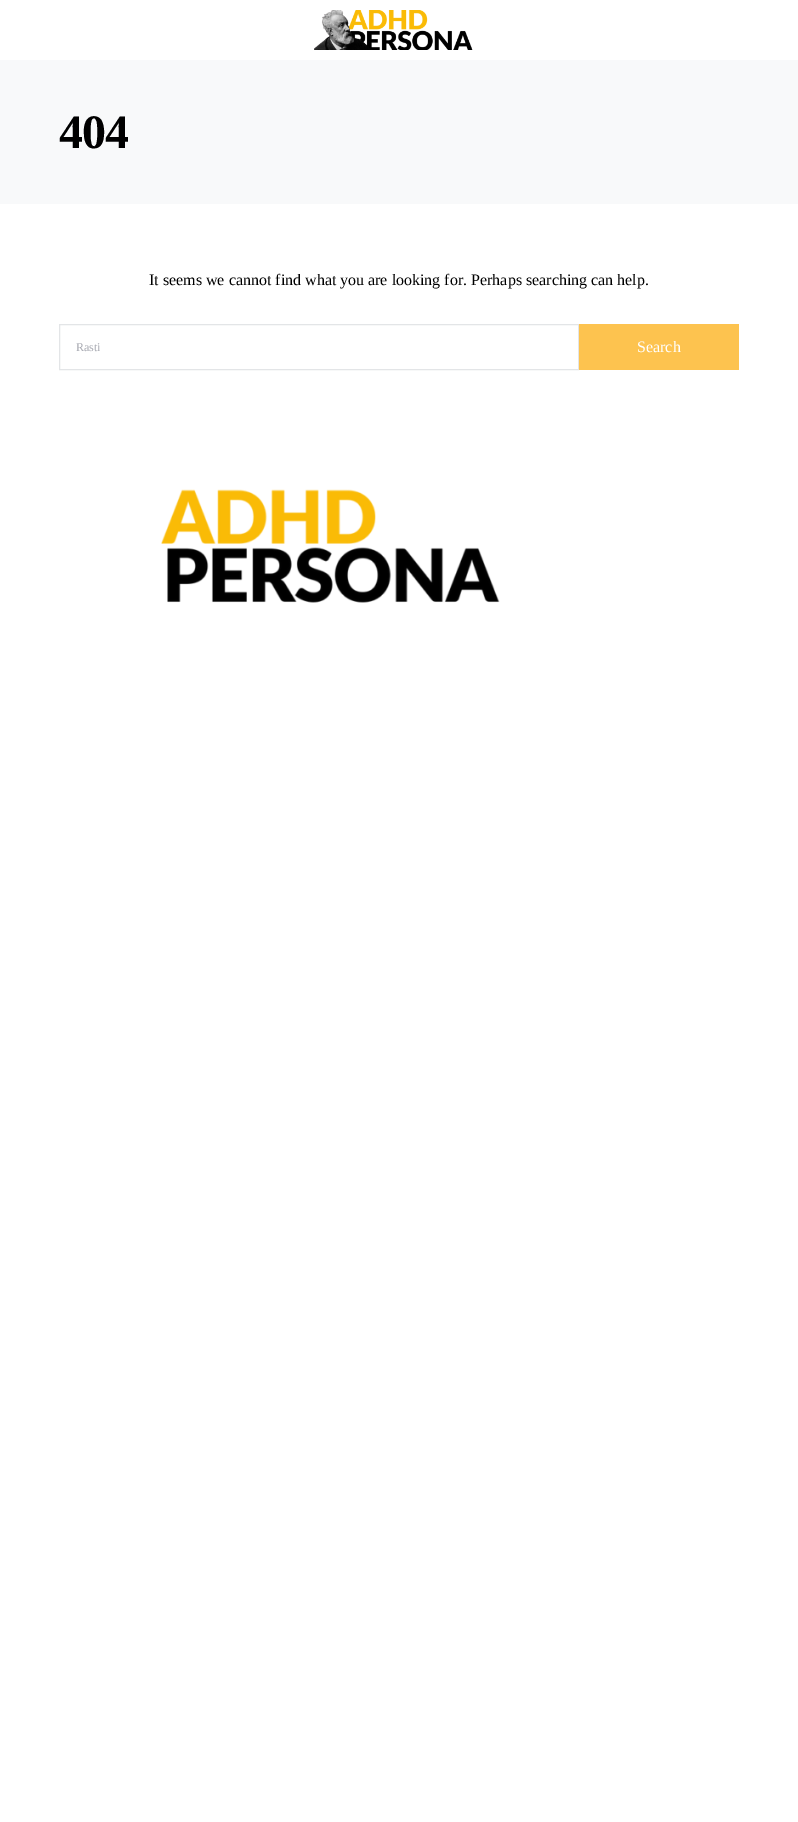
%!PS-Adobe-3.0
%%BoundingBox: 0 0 798 1822
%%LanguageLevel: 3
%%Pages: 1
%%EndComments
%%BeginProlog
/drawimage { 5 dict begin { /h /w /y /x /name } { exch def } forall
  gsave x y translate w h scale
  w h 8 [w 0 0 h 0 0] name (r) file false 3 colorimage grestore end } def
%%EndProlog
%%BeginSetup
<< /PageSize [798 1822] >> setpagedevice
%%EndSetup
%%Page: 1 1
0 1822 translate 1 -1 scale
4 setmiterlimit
1 setgray
0 0 798 1822 rectfill
(images/1.raw) 314 10 159 40 drawimage
0.973 0.976 0.98 setrgbcolor
0 60 798 144 rectfill
0.89 0.898 0.906 setrgbcolor
59.5 324.5 519 45 rectstroke
0.992 0.765 0.31 setrgbcolor
579 324 160 46 rectfill
(images/2.raw) 161 489 339 114 drawimage
/LiberationSerif-Bold [48 0 0 -48 0 0] selectfont
0 setgray
59 148 moveto -1 0 (404) ashow
/LiberationSerif-Regular [16 0 0 -16 0 0] selectfont
149 285 moveto (It seems we cannot find what you are looking for. Perhaps searching can help.) show
/LiberationSerif-Regular [12 0 0 -12 0 0] selectfont
0.659 0.667 0.698 setrgbcolor
76 351 moveto (Rasti) show
/LiberationSerif-Regular [16 0 0 -16 0 0] selectfont
1 setgray
637 352 moveto (Search) show
showpage
%%EOF
